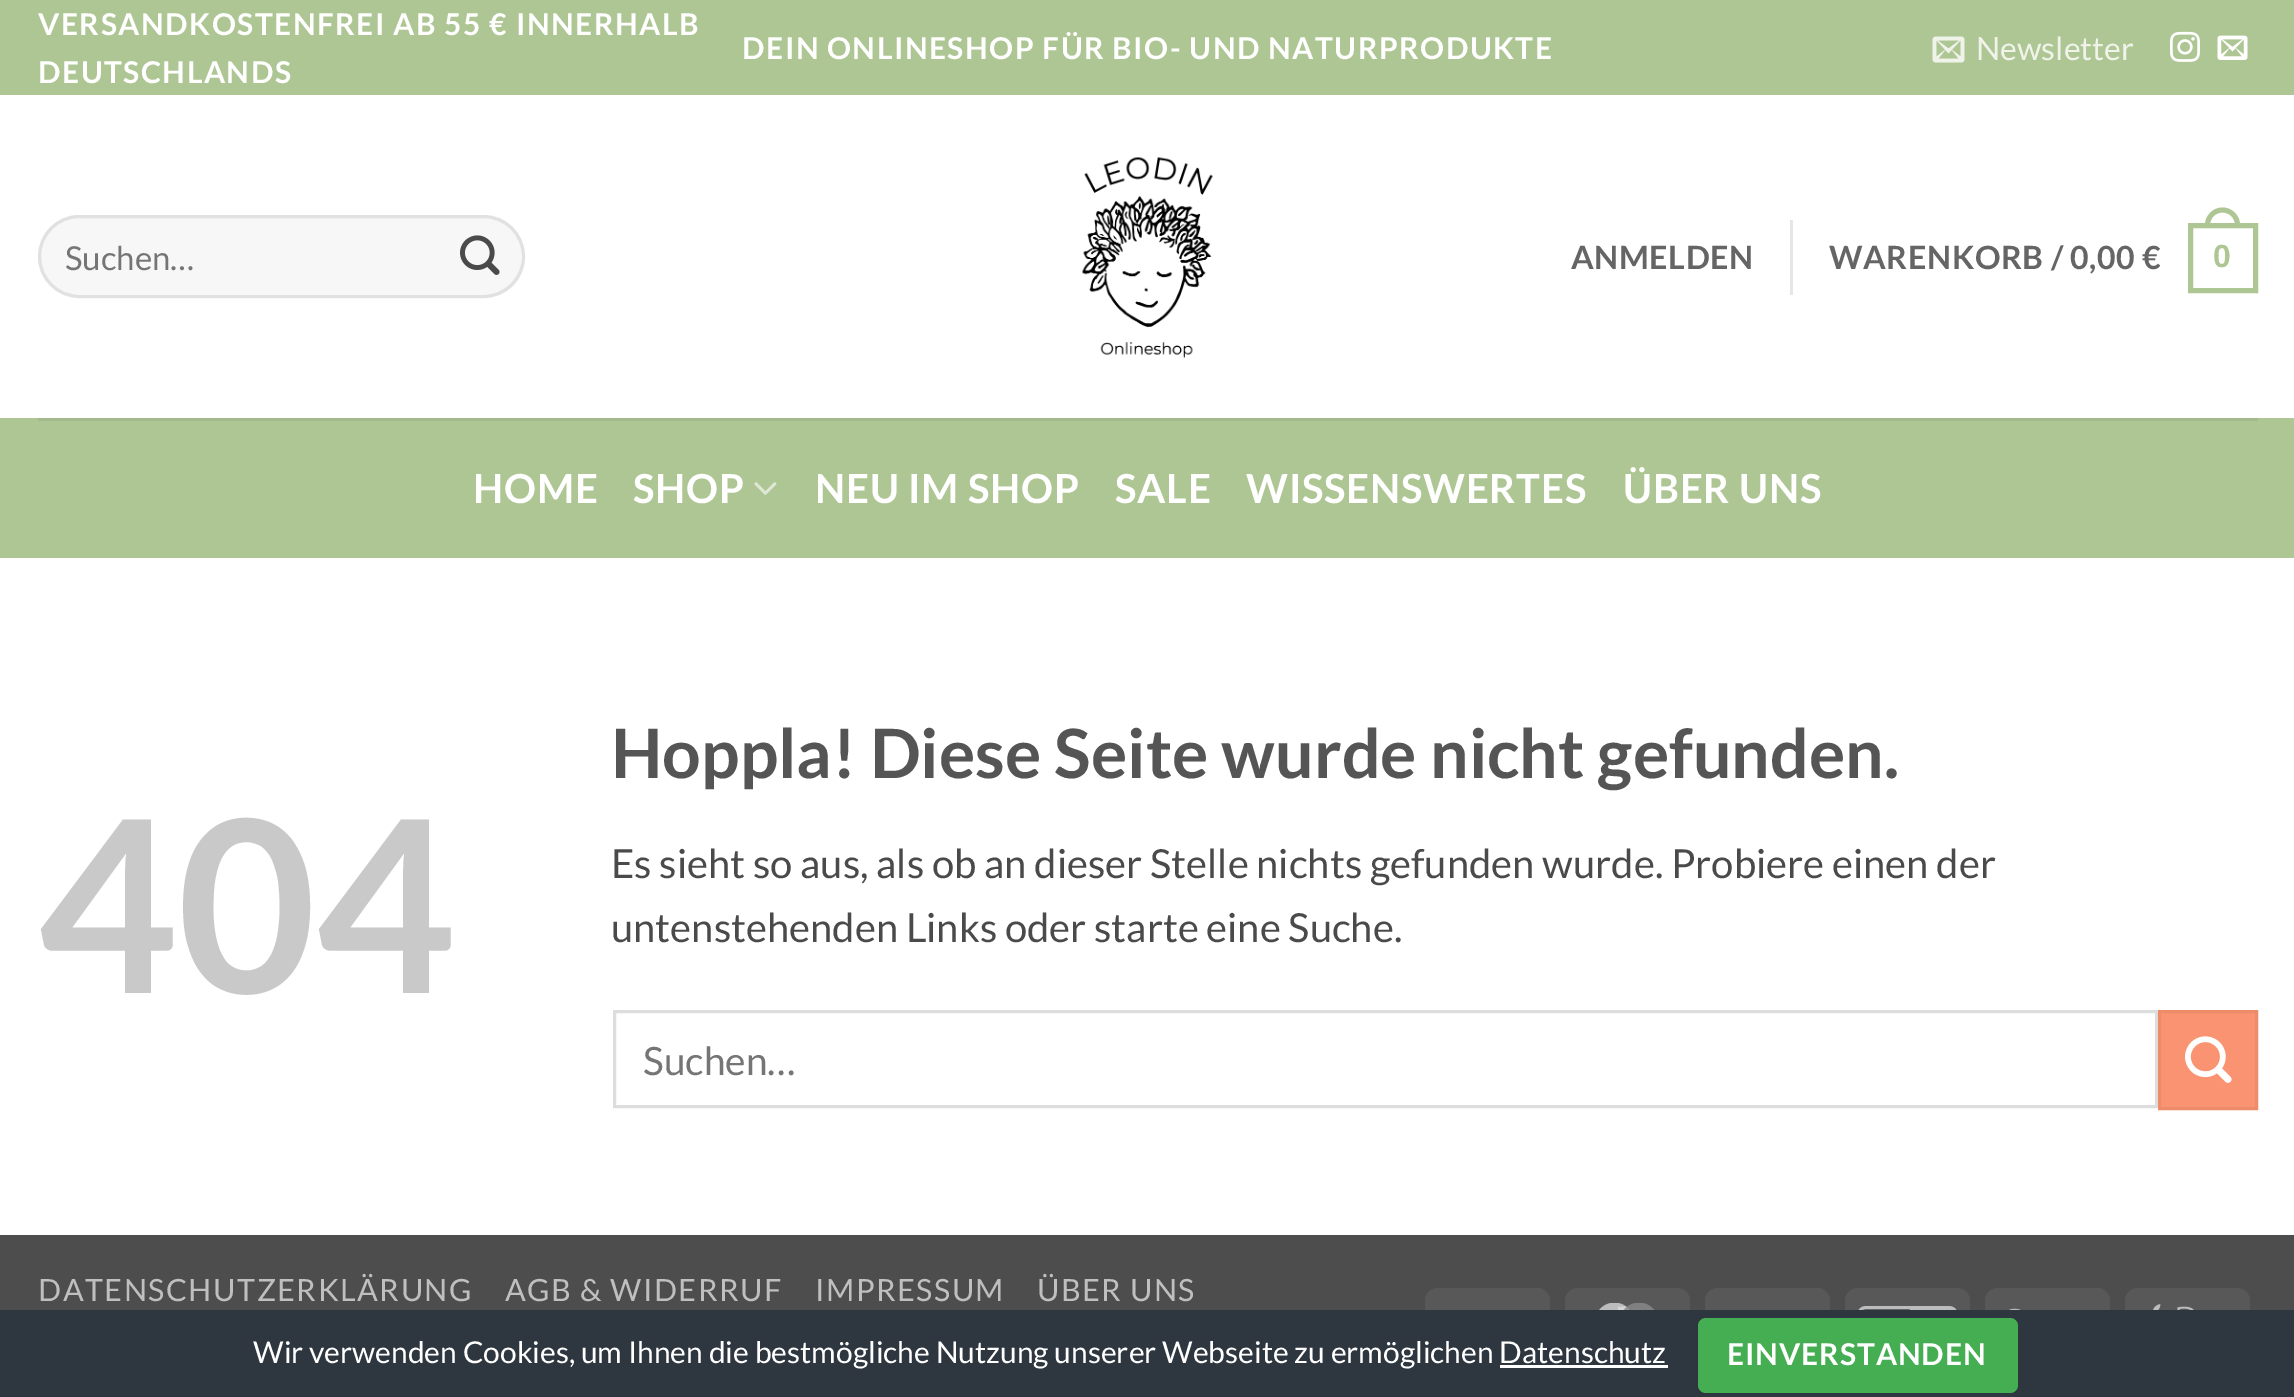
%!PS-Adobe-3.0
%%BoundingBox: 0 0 2294 1397
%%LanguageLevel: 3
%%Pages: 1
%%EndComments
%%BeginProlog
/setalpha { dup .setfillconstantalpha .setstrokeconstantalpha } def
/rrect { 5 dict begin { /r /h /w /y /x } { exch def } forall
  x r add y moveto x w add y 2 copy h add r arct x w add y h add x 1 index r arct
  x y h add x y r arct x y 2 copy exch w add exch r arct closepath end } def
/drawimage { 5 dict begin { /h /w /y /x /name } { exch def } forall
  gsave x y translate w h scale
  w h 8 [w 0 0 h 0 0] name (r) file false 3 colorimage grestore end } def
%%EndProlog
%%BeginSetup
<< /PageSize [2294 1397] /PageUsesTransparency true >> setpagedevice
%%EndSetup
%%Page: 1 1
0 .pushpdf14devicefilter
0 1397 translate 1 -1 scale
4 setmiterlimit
1 setgray
0 0 2294 1397 rectfill
0.682 0.773 0.58 setrgbcolor
0 0 2294 95 rectfill
(images/1.raw) 1932 36 33 27 drawimage
(images/2.raw) 2170 31 30 31 drawimage
(images/3.raw) 2217 35 31 25 drawimage
0.969 setgray
38 215 487 83 41.5 rrect fill
0.09 setalpha
0 setgray
3 setlinewidth
39.5 216.5 484 80 40 rrect stroke
1 setalpha
(images/4.raw) 460 235 40 40 drawimage
(images/5.raw) 1082 157 131 201 drawimage
0.902 setgray
1790 220 3 75 rectfill
0.682 0.773 0.58 setrgbcolor
5 setlinewidth
2190.5 225.5 65 65 rectstroke
newpath 2222.5 207.5 moveto 2232 207.5 2240 215.5 2240 225 curveto 2240 227.5 lineto 2205 227.5 lineto 2205 225 lineto 2205 215.5 2213 207.5 2222.5 207.5 curveto closepath 2222.5 212.5 moveto 2229.5 212.5 2235 218 2235 225 curveto 2235 227.5 lineto 2210 227.5 lineto 2210 225 lineto 2210 218 2215.5 212.5 2222.5 212.5 curveto closepath eofill
0 418 2294 140 rectfill
0.643 0.725 0.553 setrgbcolor
38 418 2220 3 rectfill
(images/6.raw) 754 482 23 13 drawimage
0.867 setgray
3 setlinewidth
614.5 1011.5 1542 95 rectstroke
0.976 0.576 0.443 setrgbcolor
newpath 2159.5 1011.5 moveto 2256.5 1011.5 lineto 2256.5 1108.5 lineto 2159.5 1108.5 lineto closepath gsave fill grestore
0.929 0.549 0.42 setrgbcolor
stroke
(images/7.raw) 2185 1036 47 47 drawimage
0.302 setgray
0 1235 2294 75 rectfill
0.345 setgray
1425 1288 125 77 13 rrect fill
1565 1288 125 77 13 rrect fill
(images/8.raw) 1599 1303 56 7 drawimage
1705 1288 125 77 13 rrect fill
1845 1288 125 77 13 rrect fill
(images/9.raw) 1858 1306 99 4 drawimage
1985 1288 125 77 13 rrect fill
(images/10.raw) 2009 1308 12 2 drawimage
2125 1288 125 77 13 rrect fill
(images/11.raw) 2153 1304 41 6 drawimage
0.18 0.212 0.247 setrgbcolor
0 1310 2294 87 rectfill
0.271 0.682 0.322 setrgbcolor
1698 1318 320 75 8 rrect fill
1 setgray
1500 1365 168 3 rectfill
/Lato-Bold [30 0 0 -30 0 0] selectfont
38 35 moveto 1.5 0 (VERSANDKOSTENFREI AB 55 € INNERHALB) ashow
38 83 moveto 1.5 0 (DEUTSCHLANDS) ashow
742 59 moveto 1.5 0 (DEIN ONLINESHOP FÜR BIO- UND NATURPRODUKTE) ashow
/Lato-Regular [32 0 0 -32 0 0] selectfont
0.937 0.953 0.918 setrgbcolor
1976 60 moveto (Newsletter) show
/Lato-Regular [33 0 0 -33 0 0] selectfont
0.459 setgray
65 270 moveto (Suchen…) show
/Lato-Bold [32 0 0 -32 0 0] selectfont
0.396 setgray
1571 269 moveto 0.6 0 (ANMELDEN) ashow
1829 269 moveto 0.6 0 (WARENKORB / 0,00 €) ashow
/LiberationSans-Bold [32 0 0 -32 0 0] selectfont
0.682 0.773 0.58 setrgbcolor
2213 267 moveto 0.6 0 (0) ashow
/Lato-Bold [40 0 0 -40 0 0] selectfont
1 setgray
473 503 moveto 0.75 0 (HOME) ashow
633 503 moveto 0.75 0 (SHOP) ashow
815 503 moveto 0.75 0 (NEU IM SHOP) ashow
1115 503 moveto 0.75 0 (SALE) ashow
1246 503 moveto 0.75 0 (WISSENSWERTES) ashow
1623 503 moveto 0.75 0 (ÜBER UNS) ashow
/Lato-Bold [240 0 0 -240 0 0] selectfont
0.788 setgray
38 993 moveto (404) show
/Lato-Bold [68 0 0 -68 0 0] selectfont
0.333 setgray
611 778 moveto (Hoppla! Diese Seite wurde nicht gefunden.) show
/Lato-Regular [40 0 0 -40 0 0] selectfont
0.29 setgray
611 878 moveto (Es sieht so aus, als ob an dieser Stelle nichts gefunden wurde. Probiere einen der) show
611 942 moveto (untenstehenden Links oder starte eine Suche.) show
/Lato-Regular [39 0 0 -39 0 0] selectfont
0.459 setgray
643 1075 moveto (Suchen…) show
/Lato-Regular [30.6 0 0 -30.6 0 0] selectfont
0.749 setgray
38 1301 moveto 1.5 0 (DATENSCHUTZERKLÄRUNG) ashow
505 1301 moveto 1.5 0 (AGB & WIDERRUF) ashow
815 1301 moveto 1.5 0 (IMPRESSUM) ashow
1037 1301 moveto 1.5 0 (ÜBER UNS) ashow
/Lato-Regular [30 0 0 -30 0 0] selectfont
1 setgray
253 1363 moveto (Wir verwenden Cookies, um Ihnen die bestmögliche Nutzung unserer Webseite zu ermöglichen Datenschutz) show
/Lato-Bold [30 0 0 -30 0 0] selectfont
1727 1365 moveto 0.9 0 (EINVERSTANDEN) ashow
.poppdf14devicefilter showpage
%%EOF
